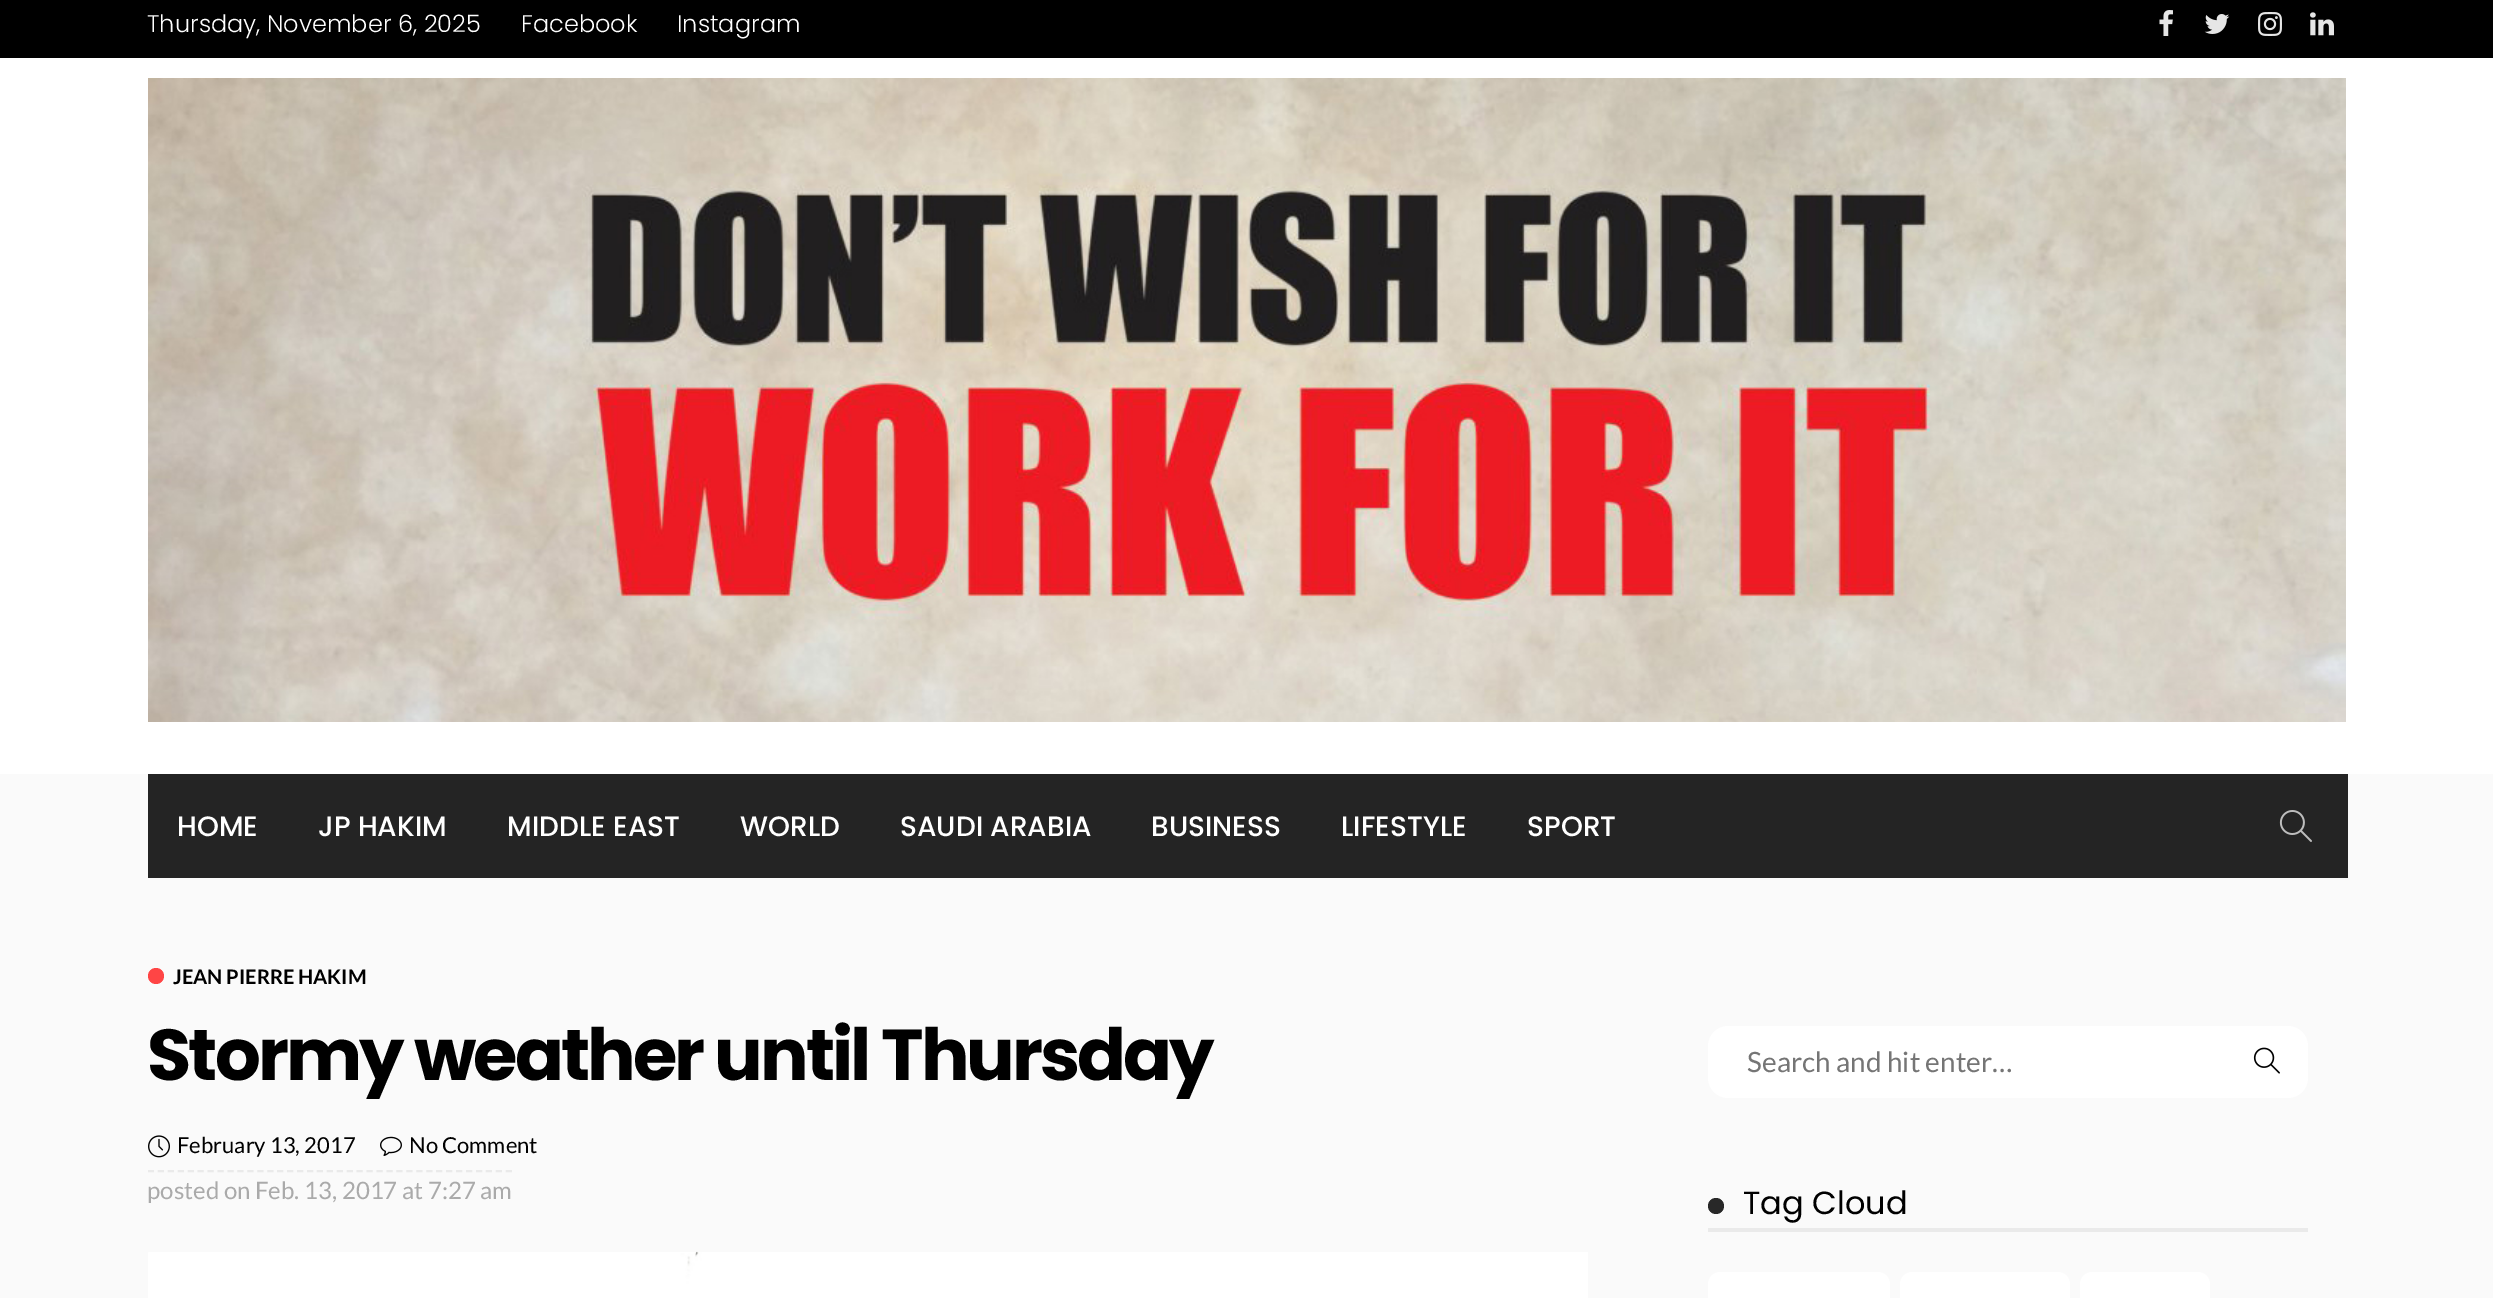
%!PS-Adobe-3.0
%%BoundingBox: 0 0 2493 1298
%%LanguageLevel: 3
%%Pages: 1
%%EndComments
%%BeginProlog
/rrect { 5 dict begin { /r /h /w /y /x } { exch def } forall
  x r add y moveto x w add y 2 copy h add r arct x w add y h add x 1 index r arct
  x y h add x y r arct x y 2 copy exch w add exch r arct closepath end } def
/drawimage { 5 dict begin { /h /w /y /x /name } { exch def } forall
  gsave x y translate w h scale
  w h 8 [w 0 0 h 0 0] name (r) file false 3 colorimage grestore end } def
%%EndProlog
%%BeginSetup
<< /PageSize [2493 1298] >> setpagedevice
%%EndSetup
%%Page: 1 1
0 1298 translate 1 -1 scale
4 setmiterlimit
0.98 setgray
0 0 2493 1298 rectfill
0 setgray
0 0 2493 58 rectfill
(images/1.raw) 2159 10 14 26 drawimage
(images/2.raw) 2204 14 26 20 drawimage
(images/3.raw) 2258 12 24 24 drawimage
(images/4.raw) 2310 12 24 24 drawimage
1 setgray
0 58 2493 716 rectfill
(images/5.raw) 148 78 2198 644 drawimage
0.141 setgray
148 774 2200 104 rectfill
(images/6.raw) 2279 810 33 32 drawimage
1 0.271 0.271 setrgbcolor
newpath 156 976 8 0 360 arc closepath fill
(images/7.raw) 148 1135 22 23 drawimage
(images/8.raw) 380 1136 22 20 drawimage
0.918 setgray
2 setlinewidth
[6 3.94] 0 setdash
newpath 148 1171 moveto 512 1171 lineto stroke
(images/9.raw) 148 1251 1440 47 drawimage
1 setgray
1708 1026 600 72 20 rrect fill
(images/10.raw) 2253 1047 27 27 drawimage
0.918 setgray
1708 1228 600 4 rectfill
0.157 setgray
newpath 1716 1206 8 0 360 arc closepath fill
1 setgray
1708 1272 182 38 12 rrect fill
1900 1272 170 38 12 rrect fill
2080 1272 130 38 12 rrect fill
/Poppins-Light [24 0 0 -24 0 0] selectfont
147 32 moveto (Thursday, November 6, 2025) show
521 32 moveto (Facebook) show
677 32 moveto (Instagram) show
/Poppins-Medium [28 0 0 -28 0 0] selectfont
177 836 moveto (HOME) show
318 836 moveto (JP HAKIM) show
507 836 moveto (MIDDLE EAST) show
740 836 moveto (WORLD) show
900 836 moveto (SAUDI ARABIA) show
1151 836 moveto (BUSINESS) show
1341 836 moveto (LIFESTYLE) show
1527 836 moveto (SPORT) show
/Lato-Bold [20 0 0 -20 0 0] selectfont
0 setgray
173 984 moveto (JEAN PIERRE HAKIM) show
/Poppins-Bold [72 0 0 -72 0 0] selectfont
147 1080 moveto -2.9 0 (Stormy weather until Thursday) ashow
/Lato-Regular [22 0 0 -22 0 0] selectfont
177 1153 moveto (February 13, 2017) show
409 1153 moveto (No Comment) show
/Lato-Regular [24 0 0 -24 0 0] selectfont
0.667 setgray
147 1199 moveto (posted on Feb. 13, 2017 at 7:27 am) show
/Lato-Regular [28 0 0 -28 0 0] selectfont
0.459 setgray
1747 1072 moveto (Search and hit enter…) show
/Poppins-Regular [32 0 0 -32 0 0] selectfont
0 setgray
1743 1214 moveto (Tag Cloud) show
showpage
%%EOF
